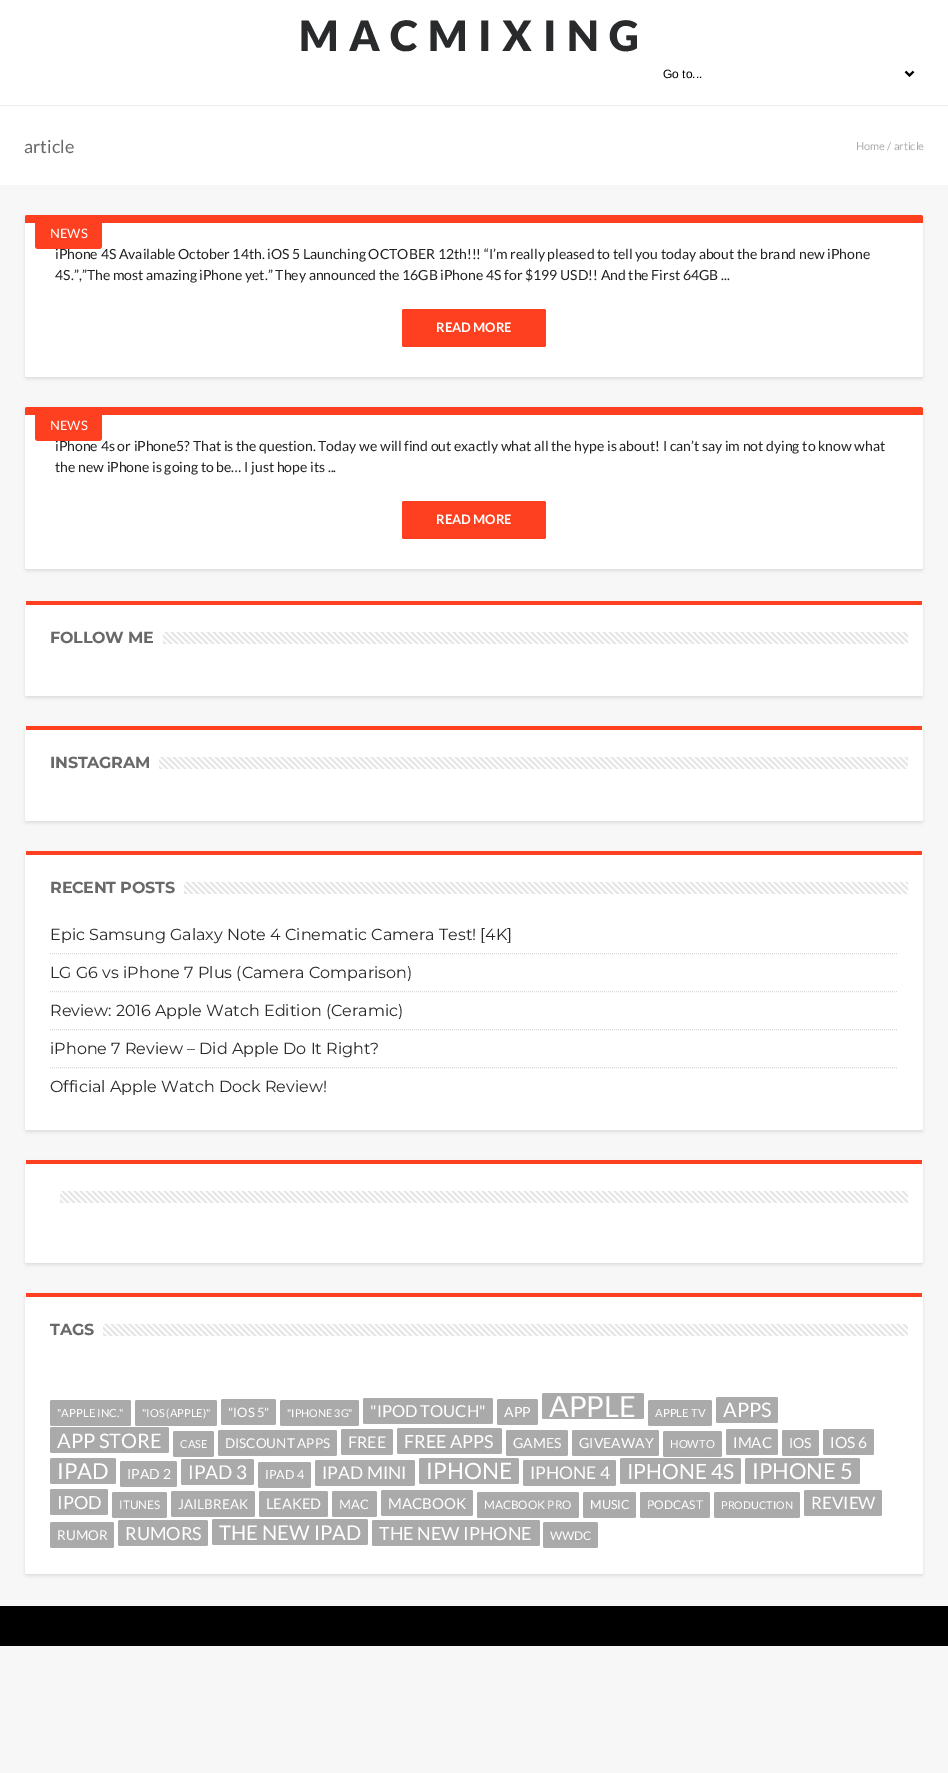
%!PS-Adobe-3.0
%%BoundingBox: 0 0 948 1773
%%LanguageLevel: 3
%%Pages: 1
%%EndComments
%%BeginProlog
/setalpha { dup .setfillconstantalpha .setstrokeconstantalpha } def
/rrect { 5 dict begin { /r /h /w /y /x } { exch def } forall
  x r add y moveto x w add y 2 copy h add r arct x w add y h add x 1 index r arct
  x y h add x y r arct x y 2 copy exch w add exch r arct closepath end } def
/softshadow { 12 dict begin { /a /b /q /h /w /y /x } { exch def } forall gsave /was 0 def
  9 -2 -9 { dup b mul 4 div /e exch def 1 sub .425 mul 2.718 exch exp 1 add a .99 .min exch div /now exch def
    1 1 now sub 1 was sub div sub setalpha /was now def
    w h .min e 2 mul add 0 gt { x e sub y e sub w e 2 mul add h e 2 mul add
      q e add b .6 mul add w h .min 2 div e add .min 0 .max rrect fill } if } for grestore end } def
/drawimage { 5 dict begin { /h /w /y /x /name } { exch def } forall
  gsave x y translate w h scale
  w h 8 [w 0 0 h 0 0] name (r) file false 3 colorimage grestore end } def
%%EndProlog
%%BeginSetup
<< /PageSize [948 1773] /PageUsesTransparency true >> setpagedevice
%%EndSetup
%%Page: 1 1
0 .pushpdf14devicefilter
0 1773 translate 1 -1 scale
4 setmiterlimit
0.969 setgray
0 0 948 1773 rectfill
1 setgray
0 0 948 105 rectfill
0 setgray
2 setlinewidth
newpath 905.5 71.5 moveto 909.5 75.5 lineto 913.5 71.5 lineto stroke
1 setgray
0 106 948 79 rectfill
0.925 setgray
0 105 948 1 rectfill
0 setgray
25 217 898 162 2 1.5 0.09 softshadow
1 setgray
25 215 898 162 2 rrect fill
1 0.251 0.125 setrgbcolor
newpath 27 215 moveto 921 215 lineto 922 215 923 216 923 217 curveto 923 223 lineto 25 223 lineto 25 217 lineto 25 216 26 215 27 215 curveto closepath fill
402 309 144 38 2 rrect fill
0 setgray
25 409 898 162 2 1.5 0.09 softshadow
1 setgray
25 407 898 162 2 rrect fill
1 0.251 0.125 setrgbcolor
newpath 27 407 moveto 921 407 lineto 922 407 923 408 923 409 curveto 923 415 lineto 25 415 lineto 25 409 lineto 25 408 26 407 27 407 curveto closepath fill
402 501 144 38 2 rrect fill
0 setgray
25 603 898 95 2 1.5 0.09 softshadow
1 setgray
25 601 898 95 2 rrect fill
1 0.251 0.125 setrgbcolor
26 601 896 4 rectfill
(images/1.raw) 163 632 745 12 drawimage
0 setgray
25 728 898 95 2 1.5 0.09 softshadow
1 setgray
25 726 898 95 2 rrect fill
1 0.251 0.125 setrgbcolor
26 726 896 4 rectfill
(images/2.raw) 159 757 749 12 drawimage
0 setgray
25 853 898 279 2 1.5 0.09 softshadow
1 setgray
25 851 898 279 2 rrect fill
1 0.251 0.125 setrgbcolor
26 851 896 4 rectfill
(images/3.raw) 184 882 724 12 drawimage
0.851 setgray
1 setlinewidth
[1 1] 0 setdash
newpath 50 953.5 moveto 898 953.5 lineto stroke
newpath 50 991.5 moveto 898 991.5 lineto stroke
newpath 50 1029.5 moveto 898 1029.5 lineto stroke
newpath 50 1067.5 moveto 898 1067.5 lineto stroke
0 setgray
25 1162 898 103 2 1.5 0.09 softshadow
1 setgray
25 1160 898 103 2 rrect fill
1 0.251 0.125 setrgbcolor
26 1160 896 4 rectfill
(images/4.raw) 60 1191 848 12 drawimage
0 setgray
25 1295 898 281 2 1.5 0.09 softshadow
1 setgray
25 1293 898 281 2 rrect fill
1 0.251 0.125 setrgbcolor
26 1293 896 4 rectfill
(images/5.raw) 103 1324 805 12 drawimage
0.667 setgray
50 1400 81 26 2 rrect fill
135 1400 82 26 2 rrect fill
221 1399 55 26 2 rrect fill
280 1400 79 26 2 rrect fill
363 1398 130 26 2 rrect fill
497 1399 41 26 2 rrect fill
542 1393 102 26 2 rrect fill
648 1400 64 26 2 rrect fill
716 1397 62 26 2 rrect fill
50 1427 119 26 2 rrect fill
173 1431 41 26 2 rrect fill
218 1430 119 26 2 rrect fill
341 1429 52 26 2 rrect fill
397 1428 105 26 2 rrect fill
506 1430 62 26 2 rrect fill
572 1430 87 26 2 rrect fill
663 1431 59 26 2 rrect fill
726 1429 52 26 2 rrect fill
782 1430 37 26 2 rrect fill
823 1429 51 26 2 rrect fill
50 1458 66 26 2 rrect fill
120 1461 57 26 2 rrect fill
181 1459 73 26 2 rrect fill
258 1462 53 26 2 rrect fill
315 1460 100 26 2 rrect fill
419 1458 100 26 2 rrect fill
523 1460 93 26 2 rrect fill
620 1458 121 26 2 rrect fill
745 1458 115 26 2 rrect fill
50 1489 58 26 2 rrect fill
112 1492 55 26 2 rrect fill
171 1491 84 26 2 rrect fill
259 1491 69 26 2 rrect fill
332 1491 45 26 2 rrect fill
381 1490 92 26 2 rrect fill
477 1492 102 26 2 rrect fill
583 1492 53 26 2 rrect fill
640 1492 70 26 2 rrect fill
714 1492 86 26 2 rrect fill
804 1490 78 26 2 rrect fill
50 1522 64 26 2 rrect fill
118 1520 90 26 2 rrect fill
212 1519 156 26 2 rrect fill
372 1520 168 26 2 rrect fill
543 1522 55 26 2 rrect fill
0 setgray
0 1606 948 40 rectfill
/Lato-Black [42 0 0 -42 0 0] selectfont
0.157 0.165 0.169 setrgbcolor
299 51 moveto 10.5 0 (MACMIXING) ashow
/LiberationSans-Regular [12 0 0 -12 0 0] selectfont
0 setgray
663 78 moveto (Go to...) show
/Lato-Regular [18 0 0 -18 0 0] selectfont
0.412 setgray
24 153 moveto (article) show
/Lato-Regular [11 0 0 -11 0 0] selectfont
0.667 setgray
856 150 moveto (Home / article) show
/Lato-Regular [14 0 0 -14 0 0] selectfont
0.133 setgray
55 259 moveto (iPhone 4S Available October 14th. iOS 5 Launching OCTOBER 12th!!! “I’m really pleased to tell you today about the brand new iPhone) show
1 0.251 0.125 setrgbcolor
35 215 67 34 3 rrect fill
/Lato-Regular [13 0 0 -13 0 0] selectfont
1 setgray
50 238 moveto (NEWS) show
/Lato-Regular [14 0 0 -14 0 0] selectfont
0.133 setgray
55 280 moveto (4S.”,”The most amazing iPhone yet.” They announced the 16GB iPhone 4S for $199 USD!! And the First 64GB ...) show
/Lato-Bold [13 0 0 -13 0 0] selectfont
1 setgray
436 332 moveto (READ MORE) show
/Lato-Regular [14 0 0 -14 0 0] selectfont
0.133 setgray
55 451 moveto (iPhone 4s or iPhone5? That is the question. Today we will find out exactly what all the hype is about! I can’t say im not dying to know what) show
1 0.251 0.125 setrgbcolor
35 407 67 34 3 rrect fill
/Lato-Regular [13 0 0 -13 0 0] selectfont
1 setgray
50 430 moveto (NEWS) show
/Lato-Regular [14 0 0 -14 0 0] selectfont
0.133 setgray
55 472 moveto (the new iPhone is going to be… I just hope its ...) show
/Lato-Bold [13 0 0 -13 0 0] selectfont
1 setgray
436 524 moveto (READ MORE) show
/Montserrat-Bold [16 0 0 -16 0 0] selectfont
0.412 setgray
50 643 moveto -0.25 0 (FOLLOW ME) ashow
50 768 moveto -0.25 0 (INSTAGRAM) ashow
50 893 moveto -0.25 0 (RECENT POSTS) ashow
/Montserrat-Regular [16 0 0 -16 0 0] selectfont
0.157 0.165 0.169 setrgbcolor
50 940 moveto (Epic Samsung Galaxy Note 4 Cinematic Camera Test! [4K]) show
50 978 moveto (LG G6 vs iPhone 7 Plus \(Camera Comparison\)) show
50 1016 moveto (Review: 2016 Apple Watch Edition \(Ceramic\)) show
50 1054 moveto (iPhone 7 Review – Did Apple Do It Right?) show
50 1092 moveto (Official Apple Watch Dock Review!) show
/Montserrat-Bold [16 0 0 -16 0 0] selectfont
0.412 setgray
50 1335 moveto -0.25 0 (TAGS) ashow
/Lato-Regular [11.25 0 0 -11.25 0 0] selectfont
1 setgray
57 1417 moveto ("APPLE INC.") show
/Lato-Regular [11 0 0 -11 0 0] selectfont
142 1417 moveto ("IOS \(APPLE\)") show
/Lato-Regular [13 0 0 -13 0 0] selectfont
228 1417 moveto ("IOS 5") show
/Lato-Regular [10.75 0 0 -10.75 0 0] selectfont
287 1417 moveto ("IPHONE 3G") show
/Lato-Regular [16.5 0 0 -16.5 0 0] selectfont
370 1417 moveto ("IPOD TOUCH") show
/Lato-Regular [14 0 0 -14 0 0] selectfont
504 1417 moveto (APP) show
/Lato-Regular [29 0 0 -29 0 0] selectfont
549 1417 moveto (APPLE) show
/Lato-Regular [11.25 0 0 -11.25 0 0] selectfont
655 1417 moveto (APPLE TV) show
/Lato-Regular [20 0 0 -20 0 0] selectfont
723 1417 moveto (APPS) show
57 1448 moveto (APP STORE) show
/Lato-Regular [11 0 0 -11 0 0] selectfont
180 1448 moveto (CASE) show
/Lato-Regular [13.5 0 0 -13.5 0 0] selectfont
225 1448 moveto (DISCOUNT APPS) show
/Lato-Regular [16 0 0 -16 0 0] selectfont
348 1448 moveto (FREE) show
/Lato-Regular [18 0 0 -18 0 0] selectfont
404 1448 moveto (FREE APPS) show
/Lato-Regular [14 0 0 -14 0 0] selectfont
513 1448 moveto (GAMES) show
579 1448 moveto (GIVEAWAY) show
/Lato-Regular [11.25 0 0 -11.25 0 0] selectfont
670 1448 moveto (HOWTO) show
/Lato-Regular [15 0 0 -15 0 0] selectfont
733 1448 moveto (IMAC) show
/Lato-Regular [14 0 0 -14 0 0] selectfont
789 1448 moveto (IOS) show
/Lato-Regular [15.5 0 0 -15.5 0 0] selectfont
830 1448 moveto (IOS 6) show
/Lato-Regular [22 0 0 -22 0 0] selectfont
57 1479 moveto (IPAD) show
/Lato-Regular [14 0 0 -14 0 0] selectfont
127 1479 moveto (IPAD 2) show
/Lato-Regular [19 0 0 -19 0 0] selectfont
188 1479 moveto (IPAD 3) show
/Lato-Regular [12.5 0 0 -12.5 0 0] selectfont
265 1479 moveto (IPAD 4) show
/Lato-Regular [17.5 0 0 -17.5 0 0] selectfont
322 1479 moveto (IPAD MINI) show
/Lato-Regular [22.5 0 0 -22.5 0 0] selectfont
426 1479 moveto (IPHONE) show
/Lato-Regular [17.5 0 0 -17.5 0 0] selectfont
530 1479 moveto (IPHONE 4) show
/Lato-Regular [21 0 0 -21 0 0] selectfont
627 1479 moveto (IPHONE 4S) show
/Lato-Regular [22 0 0 -22 0 0] selectfont
752 1479 moveto (IPHONE 5) show
/Lato-Regular [18 0 0 -18 0 0] selectfont
57 1509 moveto (IPOD) show
/Lato-Regular [11.75 0 0 -11.75 0 0] selectfont
119 1509 moveto (ITUNES) show
/Lato-Regular [13.5 0 0 -13.5 0 0] selectfont
178 1509 moveto (JAILBREAK) show
/Lato-Regular [14.5 0 0 -14.5 0 0] selectfont
266 1509 moveto (LEAKED) show
/Lato-Regular [13 0 0 -13 0 0] selectfont
339 1509 moveto (MAC) show
/Lato-Regular [15 0 0 -15 0 0] selectfont
388 1509 moveto (MACBOOK) show
/Lato-Regular [11.75 0 0 -11.75 0 0] selectfont
484 1509 moveto (MACBOOK PRO) show
/Lato-Regular [12.5 0 0 -12.5 0 0] selectfont
590 1509 moveto (MUSIC) show
/Lato-Regular [12 0 0 -12 0 0] selectfont
647 1509 moveto (PODCAST) show
/Lato-Regular [10.75 0 0 -10.75 0 0] selectfont
721 1509 moveto (PRODUCTION) show
/Lato-Regular [17 0 0 -17 0 0] selectfont
811 1509 moveto (REVIEW) show
/Lato-Regular [13.5 0 0 -13.5 0 0] selectfont
57 1540 moveto (RUMOR) show
/Lato-Regular [18 0 0 -18 0 0] selectfont
125 1540 moveto (RUMORS) show
/Lato-Regular [20.25 0 0 -20.25 0 0] selectfont
219 1540 moveto (THE NEW IPAD) show
/Lato-Regular [18 0 0 -18 0 0] selectfont
379 1540 moveto (THE NEW IPHONE) show
/Lato-Regular [12 0 0 -12 0 0] selectfont
550 1540 moveto (WWDC) show
.poppdf14devicefilter showpage
%%EOF
